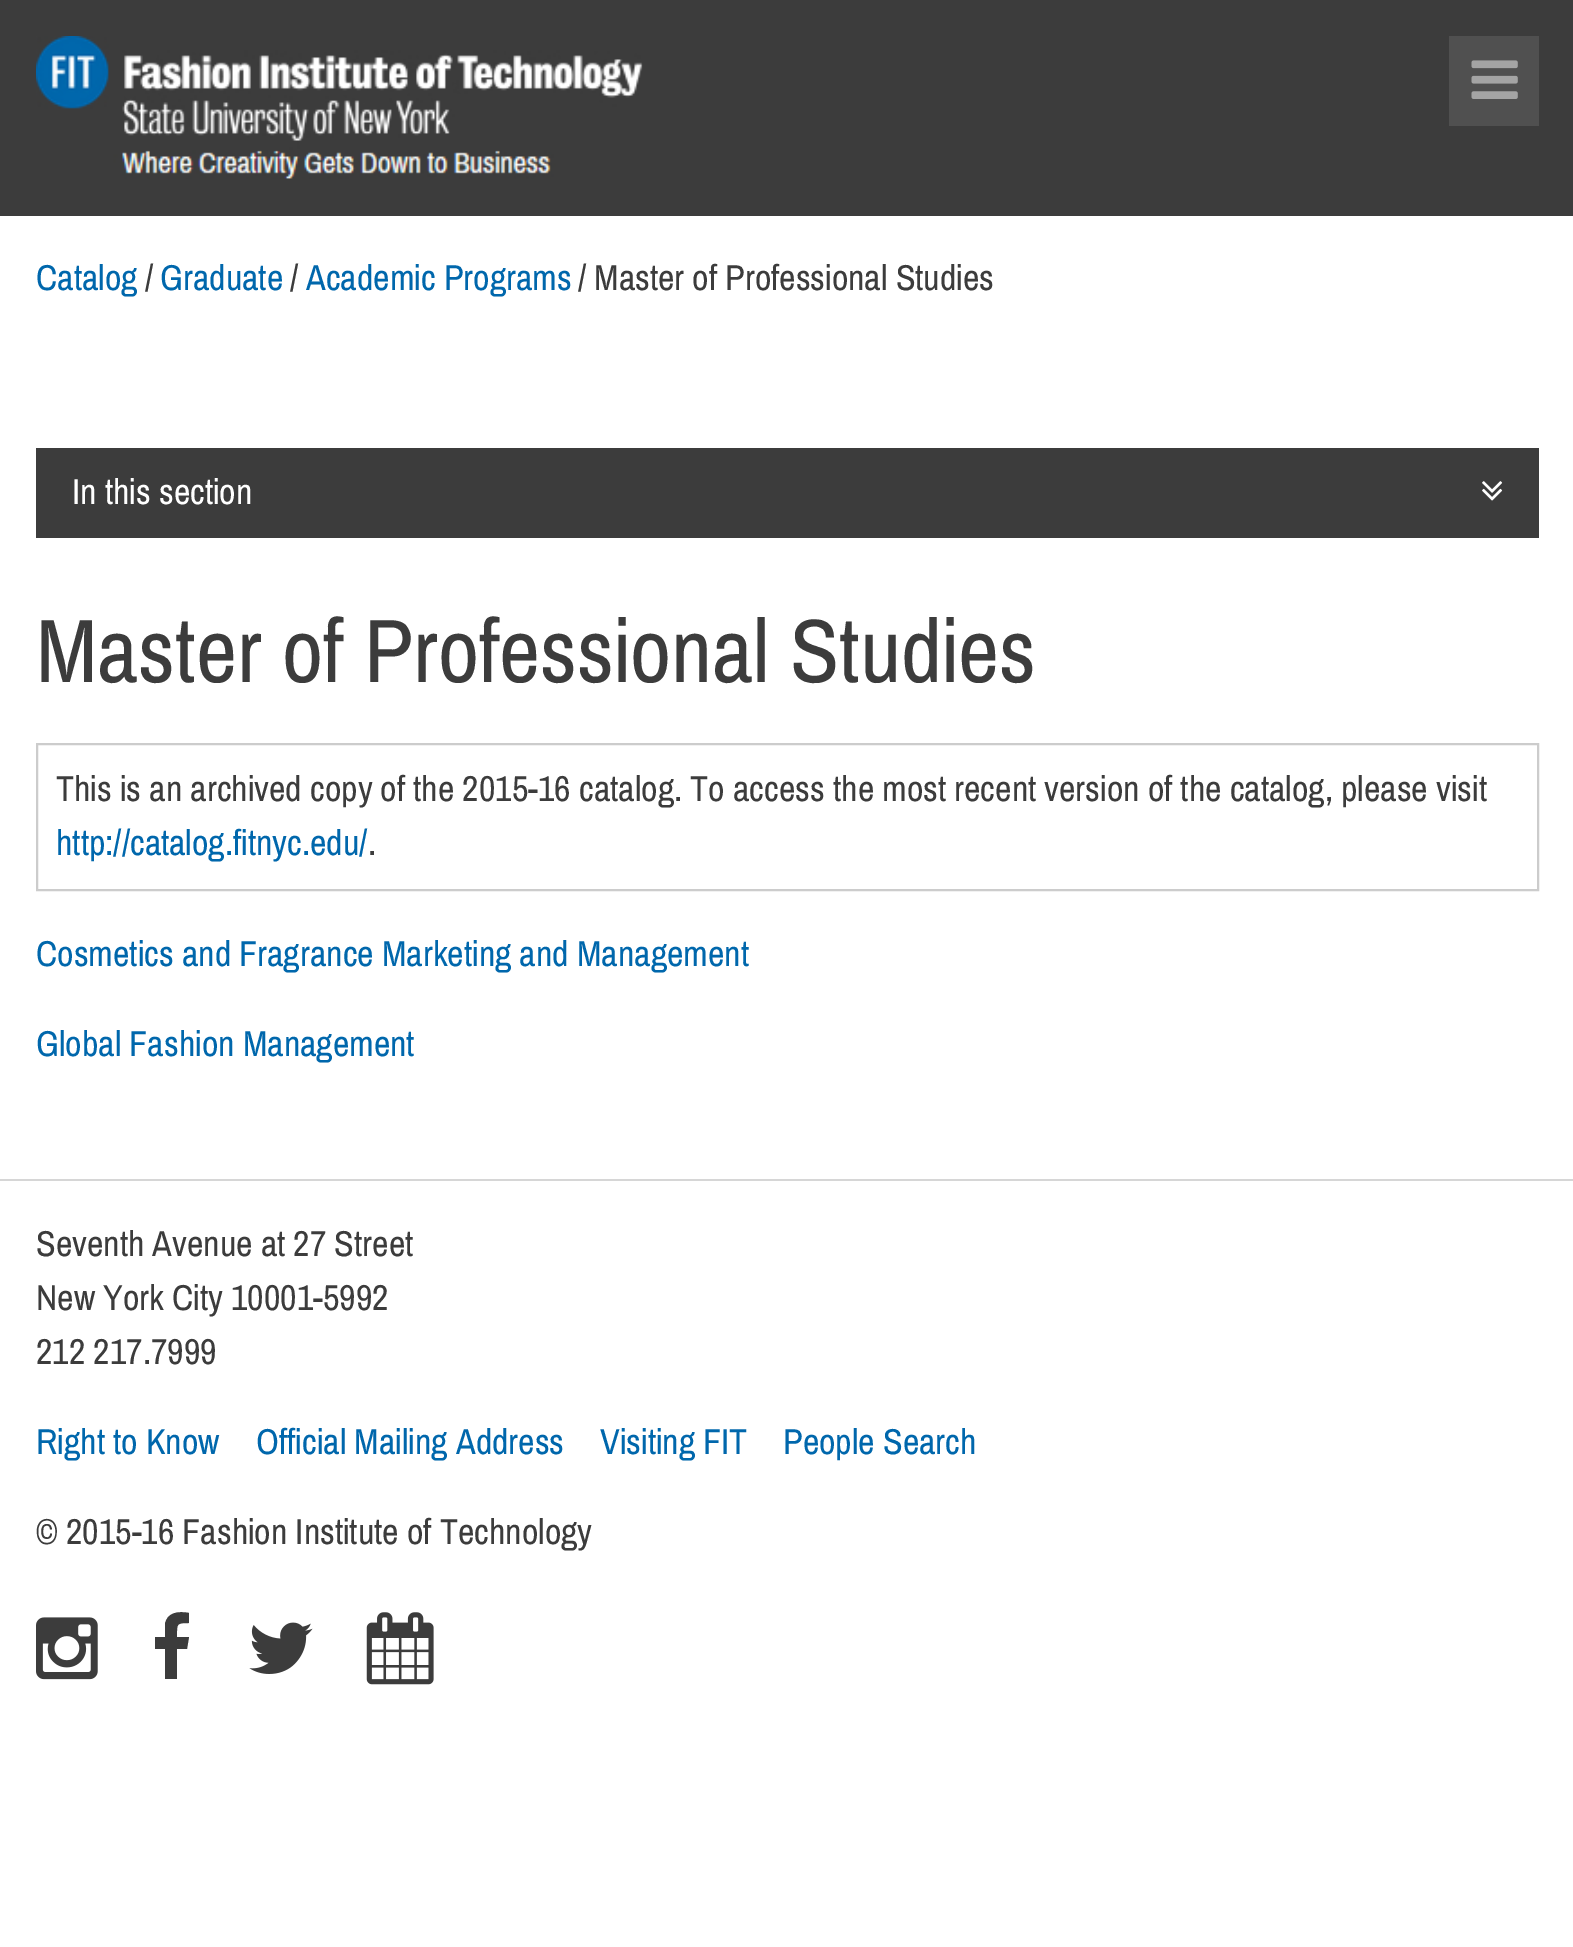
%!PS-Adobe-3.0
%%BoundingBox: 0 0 1573 1947
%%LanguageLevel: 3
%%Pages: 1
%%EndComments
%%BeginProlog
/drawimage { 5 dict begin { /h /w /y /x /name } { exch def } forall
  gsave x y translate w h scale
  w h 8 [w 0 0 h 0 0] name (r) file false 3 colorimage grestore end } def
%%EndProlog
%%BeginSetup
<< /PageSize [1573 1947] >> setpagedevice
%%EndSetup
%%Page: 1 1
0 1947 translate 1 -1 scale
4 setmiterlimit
1 setgray
0 0 1573 1947 rectfill
0.235 setgray
0 0 1573 216 rectfill
(images/1.raw) 36 36 607 143 drawimage
0.314 setgray
1449 36 90 90 rectfill
(images/2.raw) 1471 60 47 39 drawimage
0.235 setgray
36 448 1503 90 rectfill
(images/3.raw) 1482 481 21 20 drawimage
0.8 setgray
2 setlinewidth
37 744 1501 146 rectstroke
0.839 setgray
0 1179 1573 2 rectfill
(images/4.raw) 36 1617 62 63 drawimage
0.235 setgray
newpath 189 1613 moveto 189 1623 lineto 176 1623 177 1624 177 1637 curveto 189 1637 lineto 187 1649 lineto 177 1649 lineto 177 1679 lineto 165 1679 lineto 165 1649 lineto 155 1649 lineto 155 1637 lineto 165 1637 lineto 165 1624 lineto 167 1612 179 1611 189 1613 curveto closepath fill
(images/5.raw) 249 1622 64 52 drawimage
(images/6.raw) 366 1612 68 73 drawimage
/ArchivoNarrow-Regular [36 0 0 -36 0 0] selectfont
0 0.404 0.675 setrgbcolor
36 290 moveto (Catalog) show
0.235 setgray
145 290 moveto (/) show
0 0.404 0.675 setrgbcolor
160 290 moveto (Graduate) show
0.235 setgray
290 290 moveto (/) show
0 0.404 0.675 setrgbcolor
306 290 moveto (Academic Programs) show
0.235 setgray
578 290 moveto (/) show
594 290 moveto (Master of Professional Studies) show
1 setgray
72 504 moveto (In this section) show
/ArchivoNarrow-Regular [90 0 0 -90 0 0] selectfont
0.235 setgray
36 682 moveto (Master of Professional Studies) show
/ArchivoNarrow-Regular [36 0 0 -36 0 0] selectfont
56 801 moveto (This is an archived copy of the 2015-16 catalog. To access the most recent version of the catalog, please visit) show
0 0.404 0.675 setrgbcolor
56 855 moveto (http://catalog.fitnyc.edu/) show
0.235 setgray
368 855 moveto (.) show
0 0.404 0.675 setrgbcolor
36 966 moveto (Cosmetics and Fragrance Marketing and Management) show
36 1056 moveto (Global Fashion Management) show
0.235 setgray
36 1256 moveto (Seventh Avenue at 27 Street) show
36 1310 moveto (New York City 10001-5992) show
36 1364 moveto (212 217.7999) show
0 0.404 0.675 setrgbcolor
36 1454 moveto (Right to Know) show
256 1454 moveto (Official Mailing Address) show
600 1454 moveto (Visiting FIT) show
783 1454 moveto (People Search) show
0.235 setgray
36 1544 moveto (© 2015-16 Fashion Institute of Technology) show
showpage
%%EOF
